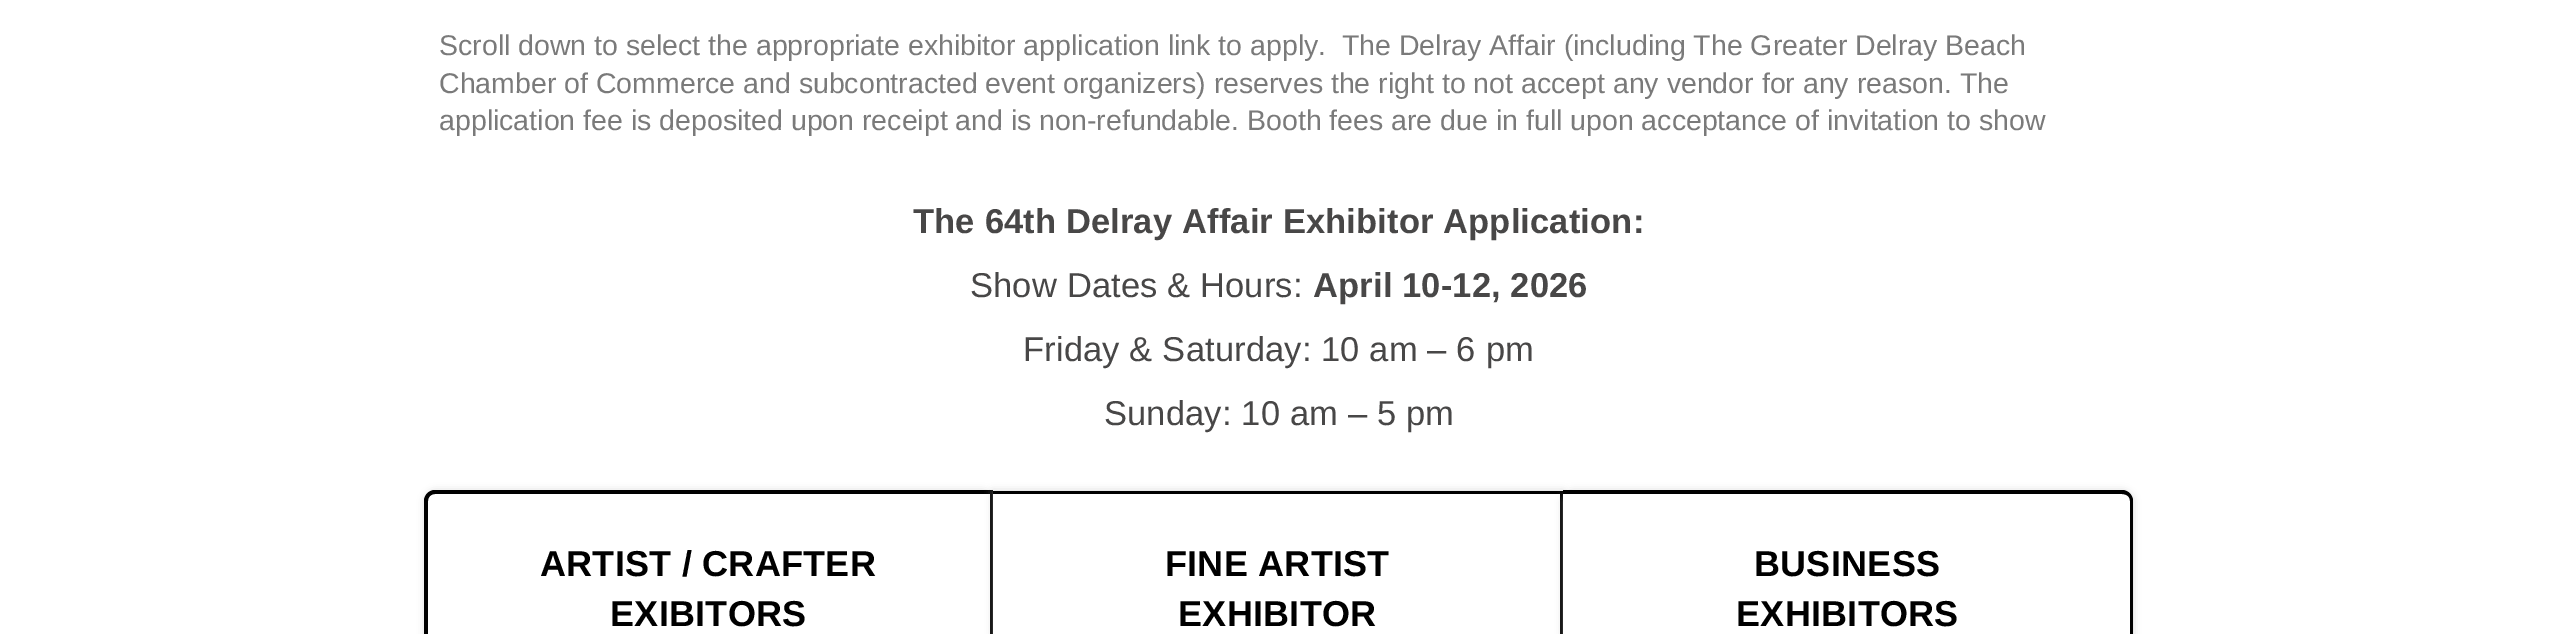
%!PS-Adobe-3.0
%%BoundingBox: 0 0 2557 634
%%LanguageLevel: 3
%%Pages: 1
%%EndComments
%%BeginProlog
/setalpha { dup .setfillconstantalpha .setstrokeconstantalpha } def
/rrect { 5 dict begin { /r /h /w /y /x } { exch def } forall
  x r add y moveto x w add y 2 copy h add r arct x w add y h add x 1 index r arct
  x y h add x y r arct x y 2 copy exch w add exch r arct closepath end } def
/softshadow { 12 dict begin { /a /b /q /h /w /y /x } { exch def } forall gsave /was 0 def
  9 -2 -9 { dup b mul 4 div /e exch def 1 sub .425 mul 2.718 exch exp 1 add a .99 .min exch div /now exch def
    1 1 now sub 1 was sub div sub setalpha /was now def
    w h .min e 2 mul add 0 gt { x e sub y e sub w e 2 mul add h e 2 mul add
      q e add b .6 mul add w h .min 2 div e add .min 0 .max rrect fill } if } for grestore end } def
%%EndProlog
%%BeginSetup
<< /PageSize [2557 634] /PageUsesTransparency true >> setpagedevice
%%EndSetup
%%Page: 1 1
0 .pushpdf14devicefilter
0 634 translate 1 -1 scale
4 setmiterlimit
1 setgray
0 0 2557 634 rectfill
gsave
newpath 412 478 moveto 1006 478 lineto 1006 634 lineto 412 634 lineto closepath 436 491 moveto 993 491 lineto 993 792 lineto 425 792 lineto 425 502 lineto 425 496 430 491 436 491 curveto closepath eoclip newpath
0.663 setgray
425 491 568 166 11 4 0.5 softshadow
grestore
0 setgray
newpath 435 490 moveto 993 490 lineto 993 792 lineto 424 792 lineto 424 501 lineto 424 495 429 490 435 490 curveto closepath 435 494 moveto 990 494 lineto 990 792 lineto 428 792 lineto 428 501 lineto 428 497 431 494 435 494 curveto closepath eofill
0.663 setgray
993 491 570 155 0 4 0.5 softshadow
1 setgray
993 494 567 140 rectfill
0 setgray
993 491 570 3 rectfill
1560 491 3 143 rectfill
0.663 setgray
1563 491 570 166 11 4 0.5 softshadow
1 setgray
newpath 1563 494 moveto 2122 494 lineto 2126.5 494 2130 497.5 2130 502 curveto 2130 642 lineto 1563 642 lineto closepath fill
0 setgray
newpath 1563 490 moveto 2122 490 lineto 2128 490 2133 495 2133 501 curveto 2133 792 lineto 1563 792 lineto closepath 1563 494 moveto 2122 494 lineto 2127 494 2130 497 2130 501 curveto 2130 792 lineto 1563 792 lineto closepath eofill
/LiberationSans-Regular [28.5 0 0 -28.5 0 0] selectfont
0.478 setgray
439 55 moveto (Scroll down to select the appropriate exhibitor application link to apply.  The Delray Affair \(including The Greater Delray Beach) show
439 93 moveto (Chamber of Commerce and subcontracted event organizers\) reserves the right to not accept any vendor for any reason. The) show
439 130 moveto (application fee is deposited upon receipt and is non-refundable. Booth fees are due in full upon acceptance of invitation to show) show
/LiberationSans-Bold [34.5 0 0 -34.5 0 0] selectfont
0.282 0.278 0.278 setrgbcolor
913 233 moveto 0.15 0 (The 64th Delray Affair Exhibitor Application:) ashow
/LiberationSans-Regular [34.5 0 0 -34.5 0 0] selectfont
970 297 moveto 0.15 0 (Show Dates & Hours:) ashow
/LiberationSans-Bold [34.5 0 0 -34.5 0 0] selectfont
1313 297 moveto 0.15 0 (April 10-12, 2026) ashow
/LiberationSans-Regular [34.5 0 0 -34.5 0 0] selectfont
1023 361 moveto 0.15 0 (Friday & Saturday: 10 am – 6 pm) ashow
1104 425 moveto 0.15 0 (Sunday: 10 am – 5 pm) ashow
/LiberationSans-Bold [36 0 0 -36 0 0] selectfont
0 setgray
540 576 moveto 0.25 0 (ARTIST / CRAFTER) ashow
610 626 moveto 0.25 0 (EXIBITORS) ashow
1165 576 moveto 0.25 0 (FINE ARTIST) ashow
1178 626 moveto 0.25 0 (EXHIBITOR) ashow
1754 576 moveto 0.25 0 (BUSINESS) ashow
1736 626 moveto 0.25 0 (EXHIBITORS) ashow
.poppdf14devicefilter showpage
%%EOF
